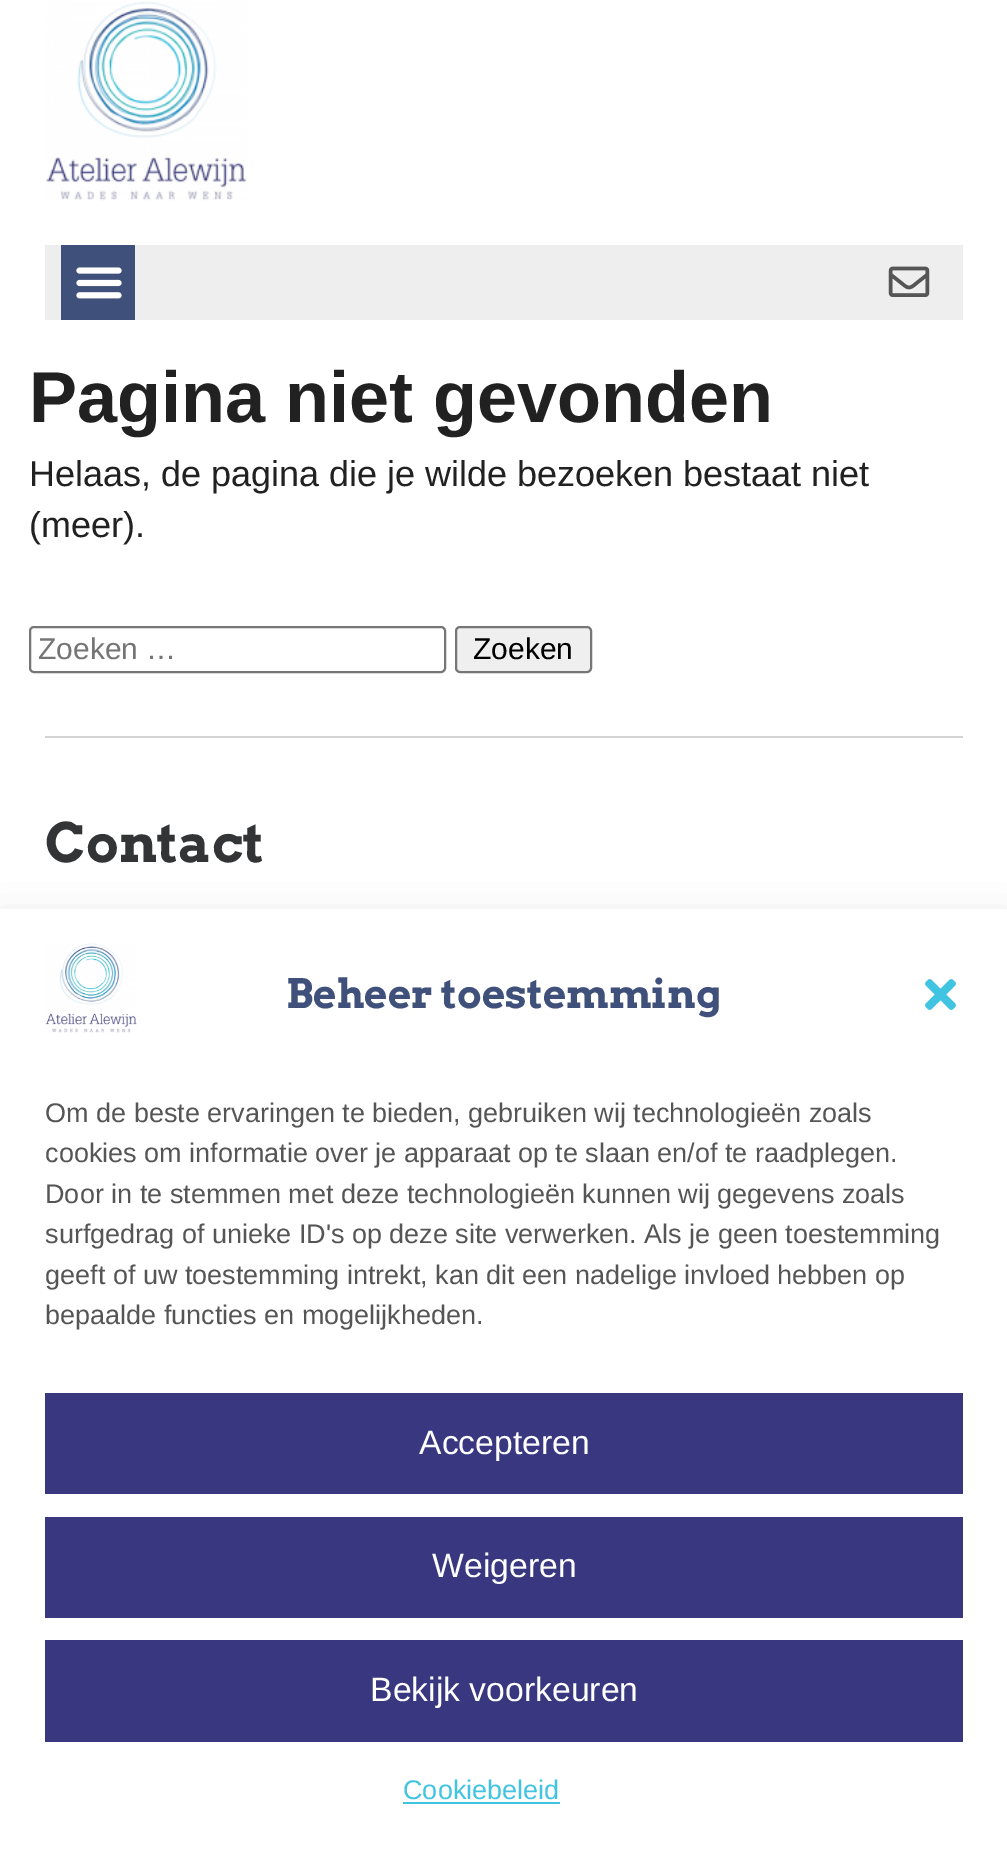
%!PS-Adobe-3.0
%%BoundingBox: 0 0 1007 1849
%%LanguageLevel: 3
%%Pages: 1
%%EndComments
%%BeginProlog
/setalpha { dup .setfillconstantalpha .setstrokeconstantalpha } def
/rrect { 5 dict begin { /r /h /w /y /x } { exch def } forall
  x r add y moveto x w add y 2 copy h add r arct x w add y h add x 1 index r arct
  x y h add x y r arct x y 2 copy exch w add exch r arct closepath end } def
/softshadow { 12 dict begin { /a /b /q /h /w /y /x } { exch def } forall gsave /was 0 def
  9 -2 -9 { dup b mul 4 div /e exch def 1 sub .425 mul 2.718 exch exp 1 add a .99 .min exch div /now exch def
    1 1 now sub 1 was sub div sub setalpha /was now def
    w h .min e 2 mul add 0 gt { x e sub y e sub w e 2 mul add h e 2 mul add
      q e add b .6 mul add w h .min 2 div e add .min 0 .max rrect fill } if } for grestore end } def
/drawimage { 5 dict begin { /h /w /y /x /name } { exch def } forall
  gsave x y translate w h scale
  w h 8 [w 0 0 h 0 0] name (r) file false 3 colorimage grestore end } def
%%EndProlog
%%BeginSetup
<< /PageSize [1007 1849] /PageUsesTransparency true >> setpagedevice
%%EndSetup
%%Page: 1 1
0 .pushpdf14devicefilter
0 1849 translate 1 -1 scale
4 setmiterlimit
1 setgray
0 0 1007 1849 rectfill
(images/1.raw) 46 1 201 200 drawimage
0.933 setgray
45 245 918 75 rectfill
0.247 0.318 0.478 setrgbcolor
61 245 74 75 rectfill
(images/2.raw) 76 267 46 32 drawimage
(images/3.raw) 888 266 42 31 drawimage
0.463 setgray
2 setlinewidth
30 627 415 45 4 rrect stroke
0.937 setgray
456 627 135 45 4 rrect gsave fill grestore
0.463 setgray
stroke
0.827 setgray
45 736 918 2 rectfill
0 setgray
0 932 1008 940 0 22.5 0.19 softshadow
1 setgray
0 909 1007 940 rectfill
(images/4.raw) 45 943 92 90 drawimage
(images/5.raw) 925 979 31 31 drawimage
0.22 0.216 0.502 setrgbcolor
45 1393 918 101 rectfill
45 1517 918 101 rectfill
45 1640 918 102 rectfill
0.255 0.769 0.886 setrgbcolor
403 1802 157 2 rectfill
/LiberationSans-Bold [72 0 0 -72 0 0] selectfont
0.129 setgray
29 422 moveto (Pagina niet gevonden) show
/LiberationSans-Regular [36 0 0 -36 0 0] selectfont
29 486 moveto (Helaas, de pagina die je wilde bezoeken bestaat niet) show
29 537 moveto (\(meer\).) show
/LiberationSans-Regular [30 0 0 -30 0 0] selectfont
0.459 setgray
38 659 moveto (Zoeken …) show
0 setgray
473 659 moveto (Zoeken) show
/Arvo-Bold [54 0 0 -54 0 0] selectfont
0.196 0.204 0.212 setrgbcolor
45 862 moveto (Contact) show
/Arvo-Bold [40.5 0 0 -40.5 0 0] selectfont
0.247 0.318 0.478 setrgbcolor
286 1008 moveto (Beheer toestemming) show
/LiberationSans-Regular [27 0 0 -27 0 0] selectfont
0.333 setgray
45 1122 moveto (Om de beste ervaringen te bieden, gebruiken wij technologieën zoals) show
45 1162 moveto (cookies om informatie over je apparaat op te slaan en/of te raadplegen.) show
45 1203 moveto (Door in te stemmen met deze technologieën kunnen wij gegevens zoals) show
45 1243 moveto (surfgedrag of unieke ID's op deze site verwerken. Als je geen toestemming) show
45 1284 moveto (geeft of uw toestemming intrekt, kan dit een nadelige invloed hebben op) show
45 1324 moveto (bepaalde functies en mogelijkheden.) show
/LiberationSans-Regular [33.75 0 0 -33.75 0 0] selectfont
1 setgray
419 1454 moveto (Accepteren) show
432 1577 moveto (Weigeren) show
370 1701 moveto (Bekijk voorkeuren) show
/LiberationSans-Regular [27 0 0 -27 0 0] selectfont
0.255 0.769 0.886 setrgbcolor
403 1799 moveto (Cookiebeleid) show
.poppdf14devicefilter showpage
%%EOF
